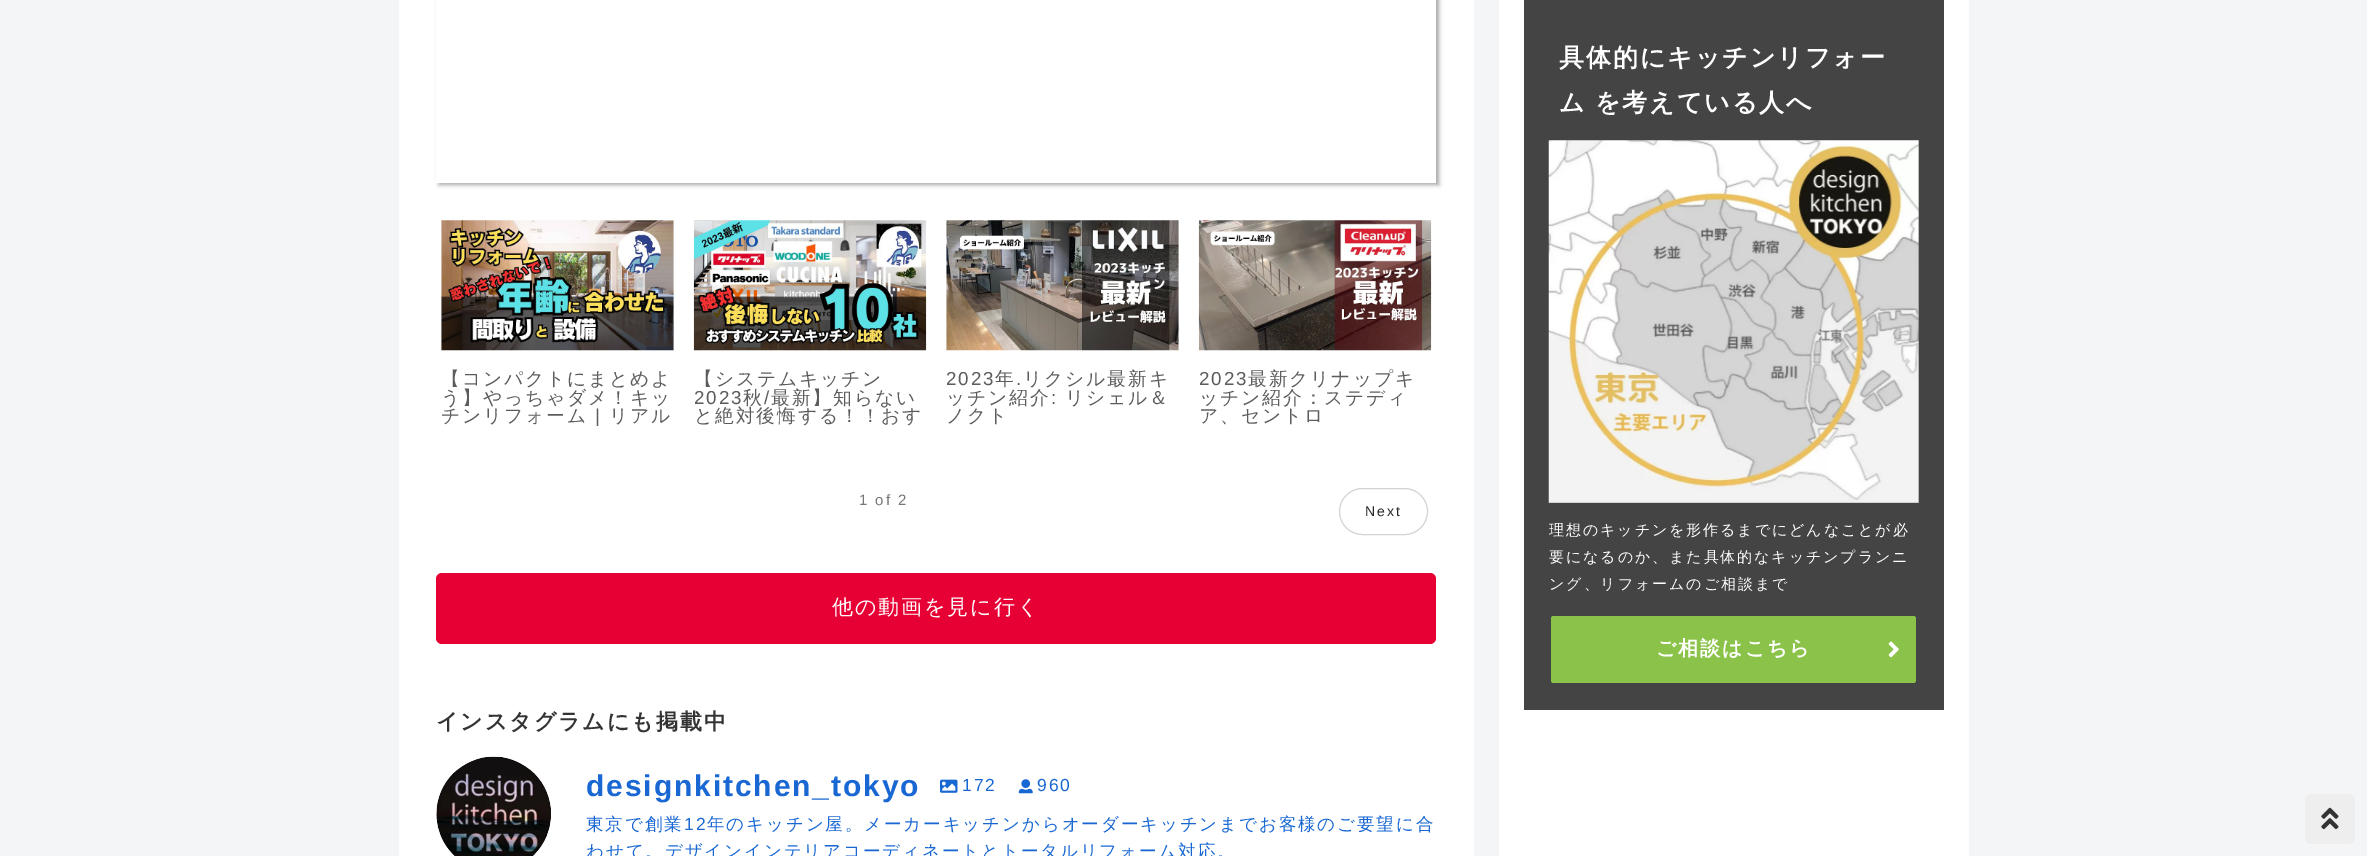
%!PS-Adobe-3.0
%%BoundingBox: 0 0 2367 856
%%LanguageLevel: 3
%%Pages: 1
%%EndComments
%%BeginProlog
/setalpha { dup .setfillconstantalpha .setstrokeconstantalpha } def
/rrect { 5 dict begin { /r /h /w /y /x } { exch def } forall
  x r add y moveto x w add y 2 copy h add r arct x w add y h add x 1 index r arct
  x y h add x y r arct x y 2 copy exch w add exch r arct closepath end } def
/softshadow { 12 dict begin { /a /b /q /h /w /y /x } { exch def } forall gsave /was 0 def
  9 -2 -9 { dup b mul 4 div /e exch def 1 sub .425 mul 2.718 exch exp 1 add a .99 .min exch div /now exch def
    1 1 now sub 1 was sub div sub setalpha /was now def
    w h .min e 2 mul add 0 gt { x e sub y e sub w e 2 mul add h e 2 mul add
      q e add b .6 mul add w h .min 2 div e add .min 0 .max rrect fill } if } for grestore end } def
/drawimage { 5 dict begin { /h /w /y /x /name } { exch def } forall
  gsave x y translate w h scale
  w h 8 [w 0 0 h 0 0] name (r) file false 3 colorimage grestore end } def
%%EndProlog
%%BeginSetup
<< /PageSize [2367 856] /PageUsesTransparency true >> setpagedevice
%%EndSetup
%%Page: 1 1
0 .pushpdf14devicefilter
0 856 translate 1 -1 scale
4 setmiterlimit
0.957 0.961 0.969 setrgbcolor
0 0 2367 856 rectfill
1 setgray
399 0 1075 856 rectfill
gsave
newpath 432 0 moveto 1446 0 lineto 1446 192 lineto 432 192 lineto closepath 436 -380 moveto 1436 -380 lineto 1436 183 lineto 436 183 lineto closepath eoclip newpath
0.039 setgray
439 -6 1000 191 0 2 0.35 softshadow
grestore
(images/1.raw) 441 220 233 131 drawimage
(images/2.raw) 693 220 234 131 drawimage
(images/3.raw) 946 220 233 131 drawimage
(images/4.raw) 1198 220 234 131 drawimage
0.827 setgray
1339.5 488.5 88 46 23 rrect stroke
0.902 0 0.2 setrgbcolor
436 573 1000 71 6 rrect fill
(images/5.raw) 436 756 115 100 drawimage
(images/6.raw) 940 779 18 14 drawimage
(images/7.raw) 1018 779 15 15 drawimage
1 setgray
1499 0 470 856 rectfill
0.267 setgray
1524 0 420 710 rectfill
(images/8.raw) 1548 140 371 363 drawimage
0.545 0.765 0.29 setrgbcolor
1551 616 365 67 2.5 rrect fill
(images/9.raw) 1888 641 11 17 drawimage
0.933 setgray
2305 794 50 50 6 rrect fill
(images/10.raw) 2321 807 18 23 drawimage
/WenQuanYiZenHei-Medium [18.75 0 0 -18.75 0 0] selectfont
0.361 setgray
441 385 moveto 1.9 0 (【コンパクトにまとめよ) ashow
441 404 moveto 1.9 0 (う】やっちゃダメ！キッ) ashow
441 422 moveto 1.9 0 (チンリフォーム) ashow
/LiberationSans-Regular [18.75 0 0 -18.75 0 0] selectfont
595 422 moveto 1.9 0 (|) ashow
/WenQuanYiZenHei-Medium [18.75 0 0 -18.75 0 0] selectfont
609 422 moveto 1.9 0 (リアル) ashow
694 385 moveto 1.9 0 (【システムキッチン) ashow
/LiberationSans-Regular [18.75 0 0 -18.75 0 0] selectfont
694 404 moveto 1.9 0 (2023) ashow
/WenQuanYiZenHei-Medium [18.75 0 0 -18.75 0 0] selectfont
743 404 moveto 1.9 0 (秋) ashow
/LiberationSans-Regular [18.75 0 0 -18.75 0 0] selectfont
764 404 moveto 1.9 0 (/) ashow
/WenQuanYiZenHei-Medium [18.75 0 0 -18.75 0 0] selectfont
771 404 moveto 1.9 0 (最新】知らない) ashow
694 422 moveto 1.9 0 (と絶対後悔する！！おす) ashow
/LiberationSans-Regular [18.75 0 0 -18.75 0 0] selectfont
946 385 moveto 1.9 0 (2023) ashow
/WenQuanYiZenHei-Medium [18.75 0 0 -18.75 0 0] selectfont
995 385 moveto 1.9 0 (年) ashow
/LiberationSans-Regular [18.75 0 0 -18.75 0 0] selectfont
1016 385 moveto 1.9 0 (.) ashow
/WenQuanYiZenHei-Medium [18.75 0 0 -18.75 0 0] selectfont
1023 385 moveto 1.9 0 (リクシル最新キ) ashow
946 404 moveto 1.9 0 (ッチン紹介) ashow
/LiberationSans-Regular [18.75 0 0 -18.75 0 0] selectfont
1051 404 moveto 1.9 0 (:) ashow
/WenQuanYiZenHei-Medium [18.75 0 0 -18.75 0 0] selectfont
1065 404 moveto 1.9 0 (リシェル＆) ashow
946 422 moveto 1.9 0 (ノクト) ashow
/LiberationSans-Regular [18.75 0 0 -18.75 0 0] selectfont
1199 385 moveto 1.9 0 (2023) ashow
/WenQuanYiZenHei-Medium [18.75 0 0 -18.75 0 0] selectfont
1248 385 moveto 1.9 0 (最新クリナップキ) ashow
1199 404 moveto 1.9 0 (ッチン紹介：ステディ) ashow
1199 422 moveto 1.9 0 (ア、セントロ) ashow
/LiberationSans-Regular [15 0 0 -15 0 0] selectfont
0.463 setgray
859 505 moveto 1.9 0 (1 of 2) ashow
/LiberationSans-Regular [14 0 0 -14 0 0] selectfont
0.153 setgray
1365 516 moveto 1.9 0 (Next) ashow
/WenQuanYiZenHei-Medium [21 0 0 -21 0 0] selectfont
1 setgray
832 614 moveto 1.9 0 (他の動画を見に行く) ashow
/WenQuanYiZenHei-Bold [22 0 0 -22 0 0] selectfont
0.2 setgray
436 729 moveto 1.9 0 (インスタグラムにも掲載中) ashow
/LiberationSans-Bold [30 0 0 -30 0 0] selectfont
0.098 0.404 0.824 setrgbcolor
586 796 moveto 1.9 0 (designkitchen_tokyo) ashow
/LiberationSans-Regular [17.5 0 0 -17.5 0 0] selectfont
962 791 moveto 1.9 0 (172) ashow
1037 791 moveto 1.9 0 (960) ashow
/WenQuanYiZenHei-Medium [17.5 0 0 -17.5 0 0] selectfont
586 830 moveto 1.9 0 (東京で創業) ashow
/LiberationSans-Regular [17.5 0 0 -17.5 0 0] selectfont
684 830 moveto 1.9 0 (12) ashow
/WenQuanYiZenHei-Medium [17.5 0 0 -17.5 0 0] selectfont
707 830 moveto 1.9 0 (年のキッチン屋。メーカーキッチンからオーダーキッチンまでお客様のご要望に合) ashow
586 857 moveto 1.9 0 (わせて。デザインインテリアコーディネートとトータルリフォーム対応。) ashow
/WenQuanYiZenHei-Bold [25 0 0 -25 0 0] selectfont
1 setgray
1559 66 moveto 1.9 0 (具体的にキッチンリフォー) ashow
1559 111 moveto -1 0 32 1.9 0 (ム を考えている人へ) awidthshow
/WenQuanYiZenHei-Medium [15 0 0 -15 0 0] selectfont
1549 535 moveto 1.9 0 (理想のキッチンを形作るまでにどんなことが必) ashow
1549 562 moveto 1.9 0 (要になるのか、また具体的なキッチンプランニ) ashow
1549 589 moveto 1.9 0 (ング、リフォームのご相談まで) ashow
/WenQuanYiZenHei-Bold [20 0 0 -20 0 0] selectfont
1656 655 moveto 1.9 0 (ご相談はこちら) ashow
.poppdf14devicefilter showpage
%%EOF
